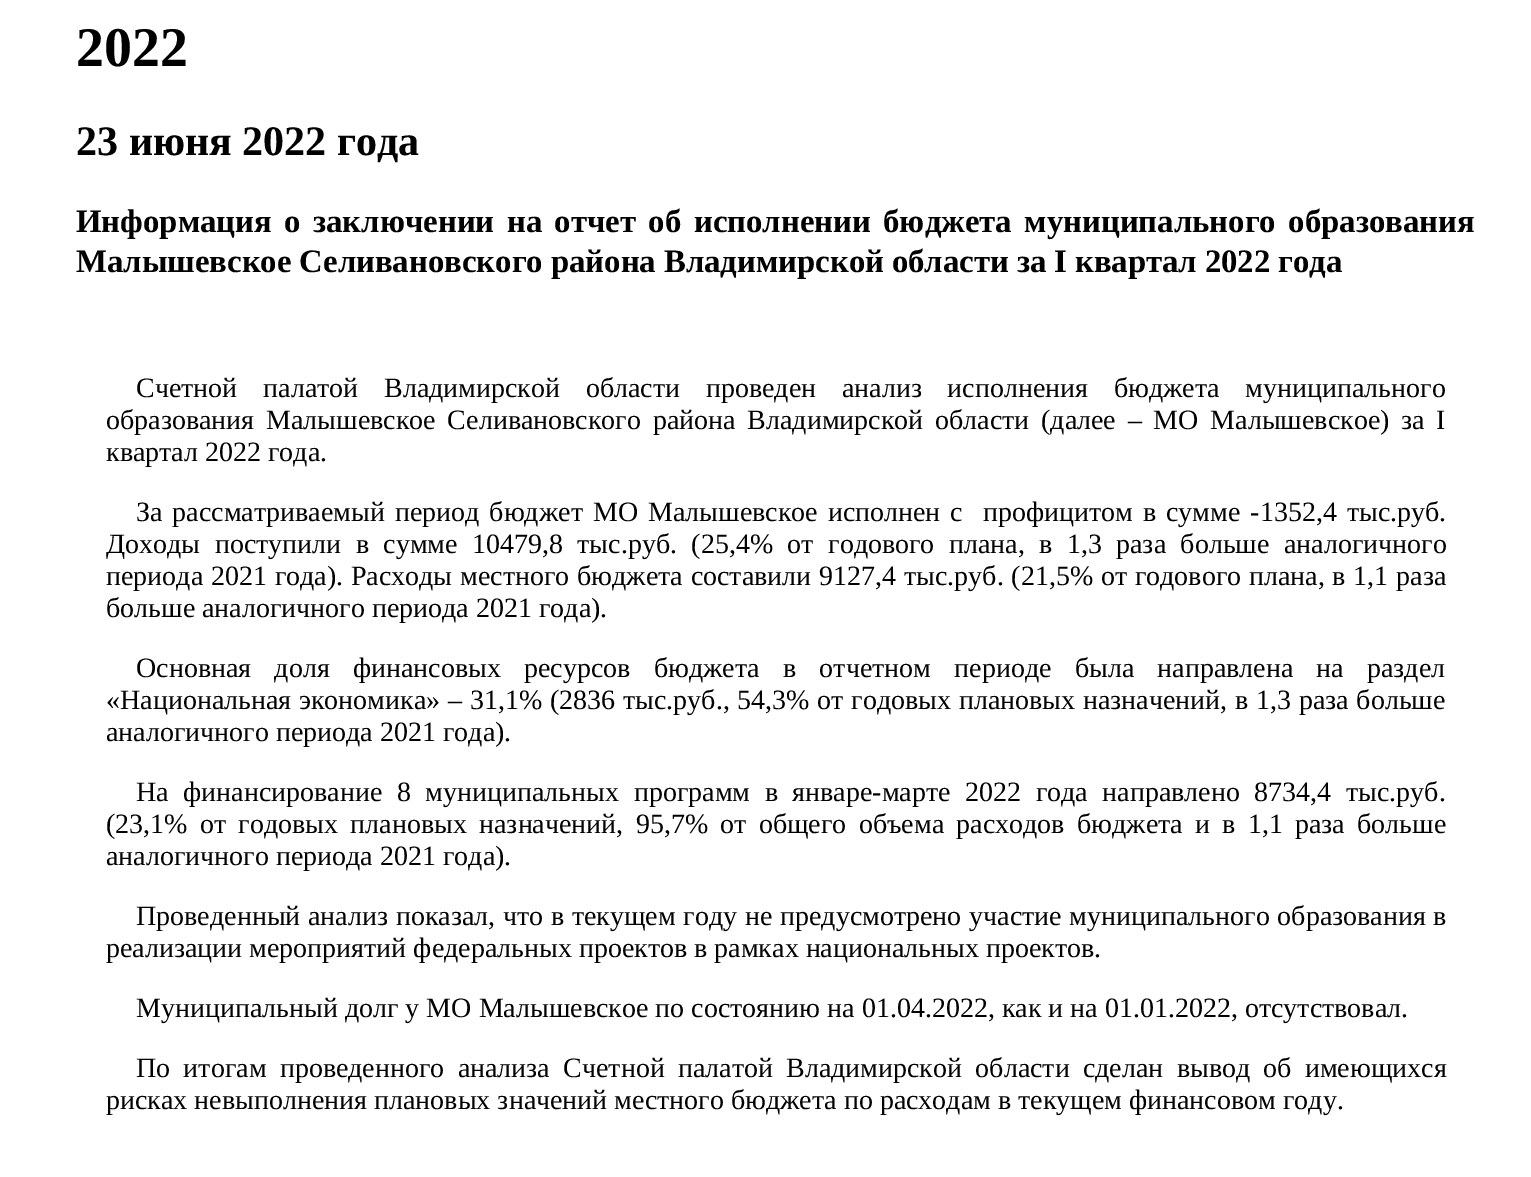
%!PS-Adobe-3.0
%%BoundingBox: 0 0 1531 1177
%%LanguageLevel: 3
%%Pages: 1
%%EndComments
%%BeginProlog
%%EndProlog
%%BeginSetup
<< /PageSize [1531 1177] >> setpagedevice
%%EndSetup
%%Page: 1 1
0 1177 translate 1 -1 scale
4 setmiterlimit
1 setgray
0 0 1531 1177 rectfill
/LiberationSerif-Bold [56 0 0 -56 0 0] selectfont
0 setgray
76 66 moveto (2022) show
/LiberationSerif-Bold [42 0 0 -42 0 0] selectfont
76 155 moveto (23 июня 2022 года) show
/LiberationSerif-Bold [32.75 0 0 -32.75 0 0] selectfont
76 232 moveto 4.25 0 32 (Информация о заключении на отчет об исполнении бюджета муниципального образования) widthshow
76 272 moveto -0.25 0 32 (Малышевское Селивановского района Владимирской области за I квартал 2022 года) widthshow
/LiberationSerif-Regular [28 0 0 -28 0 0] selectfont
136 397 moveto 18.75 0 32 (Счетной палатой Владимирской области проведен анализ исполнения бюджета муниципального) widthshow
106 429 moveto 4.75 0 32 (образования Малышевское Селивановского района Владимирской области \(далее – МО Малышевское\) за I) widthshow
106 461 moveto (квартал 2022 года.) show
136 521 moveto 3 0 32 (За рассматриваемый период бюджет МО Малышевское исполнен с  профицитом в сумме -1352,4 тыс.руб.) widthshow
106 553 moveto 7.4 0 32 (Доходы поступили в сумме 10479,8 тыс.руб. \(25,4% от годового плана, в 1,3 раза больше аналогичного) widthshow
106 585 moveto 0.75 0 32 (периода 2021 года\). Расходы местного бюджета составили 9127,4 тыс.руб. \(21,5% от годового плана, в 1,1 раза) widthshow
106 617 moveto (больше аналогичного периода 2021 года\).) show
136 677 moveto 16.25 0 32 (Основная доля финансовых ресурсов бюджета в отчетном периоде была направлена на раздел) widthshow
106 709 moveto 0.75 0 32 («Национальная экономика» – 31,1% \(2836 тыс.руб., 54,3% от годовых плановых назначений, в 1,3 раза больше) widthshow
106 741 moveto (аналогичного периода 2021 года\).) show
136 801 moveto 7.6 0 32 (На финансирование 8 муниципальных программ в январе-марте 2022 года направлено 8734,4 тыс.руб.) widthshow
106 833 moveto 5.25 0 32 (\(23,1% от годовых плановых назначений, 95,7% от общего объема расходов бюджета и в 1,1 раза больше) widthshow
106 865 moveto (аналогичного периода 2021 года\).) show
136 925 moveto 0.7 0 32 (Проведенный анализ показал, что в текущем году не предусмотрено участие муниципального образования в) widthshow
106 957 moveto (реализации мероприятий федеральных проектов в рамках национальных проектов.) show
136 1017 moveto (Муниципальный долг у МО Малышевское по состоянию на 01.04.2022, как и на 01.01.2022, отсутствовал.) show
136 1077 moveto 6.25 0 32 (По итогам проведенного анализа Счетной палатой Владимирской области сделан вывод об имеющихся) widthshow
106 1109 moveto (рисках невыполнения плановых значений местного бюджета по расходам в текущем финансовом году.) show
showpage
%%EOF
